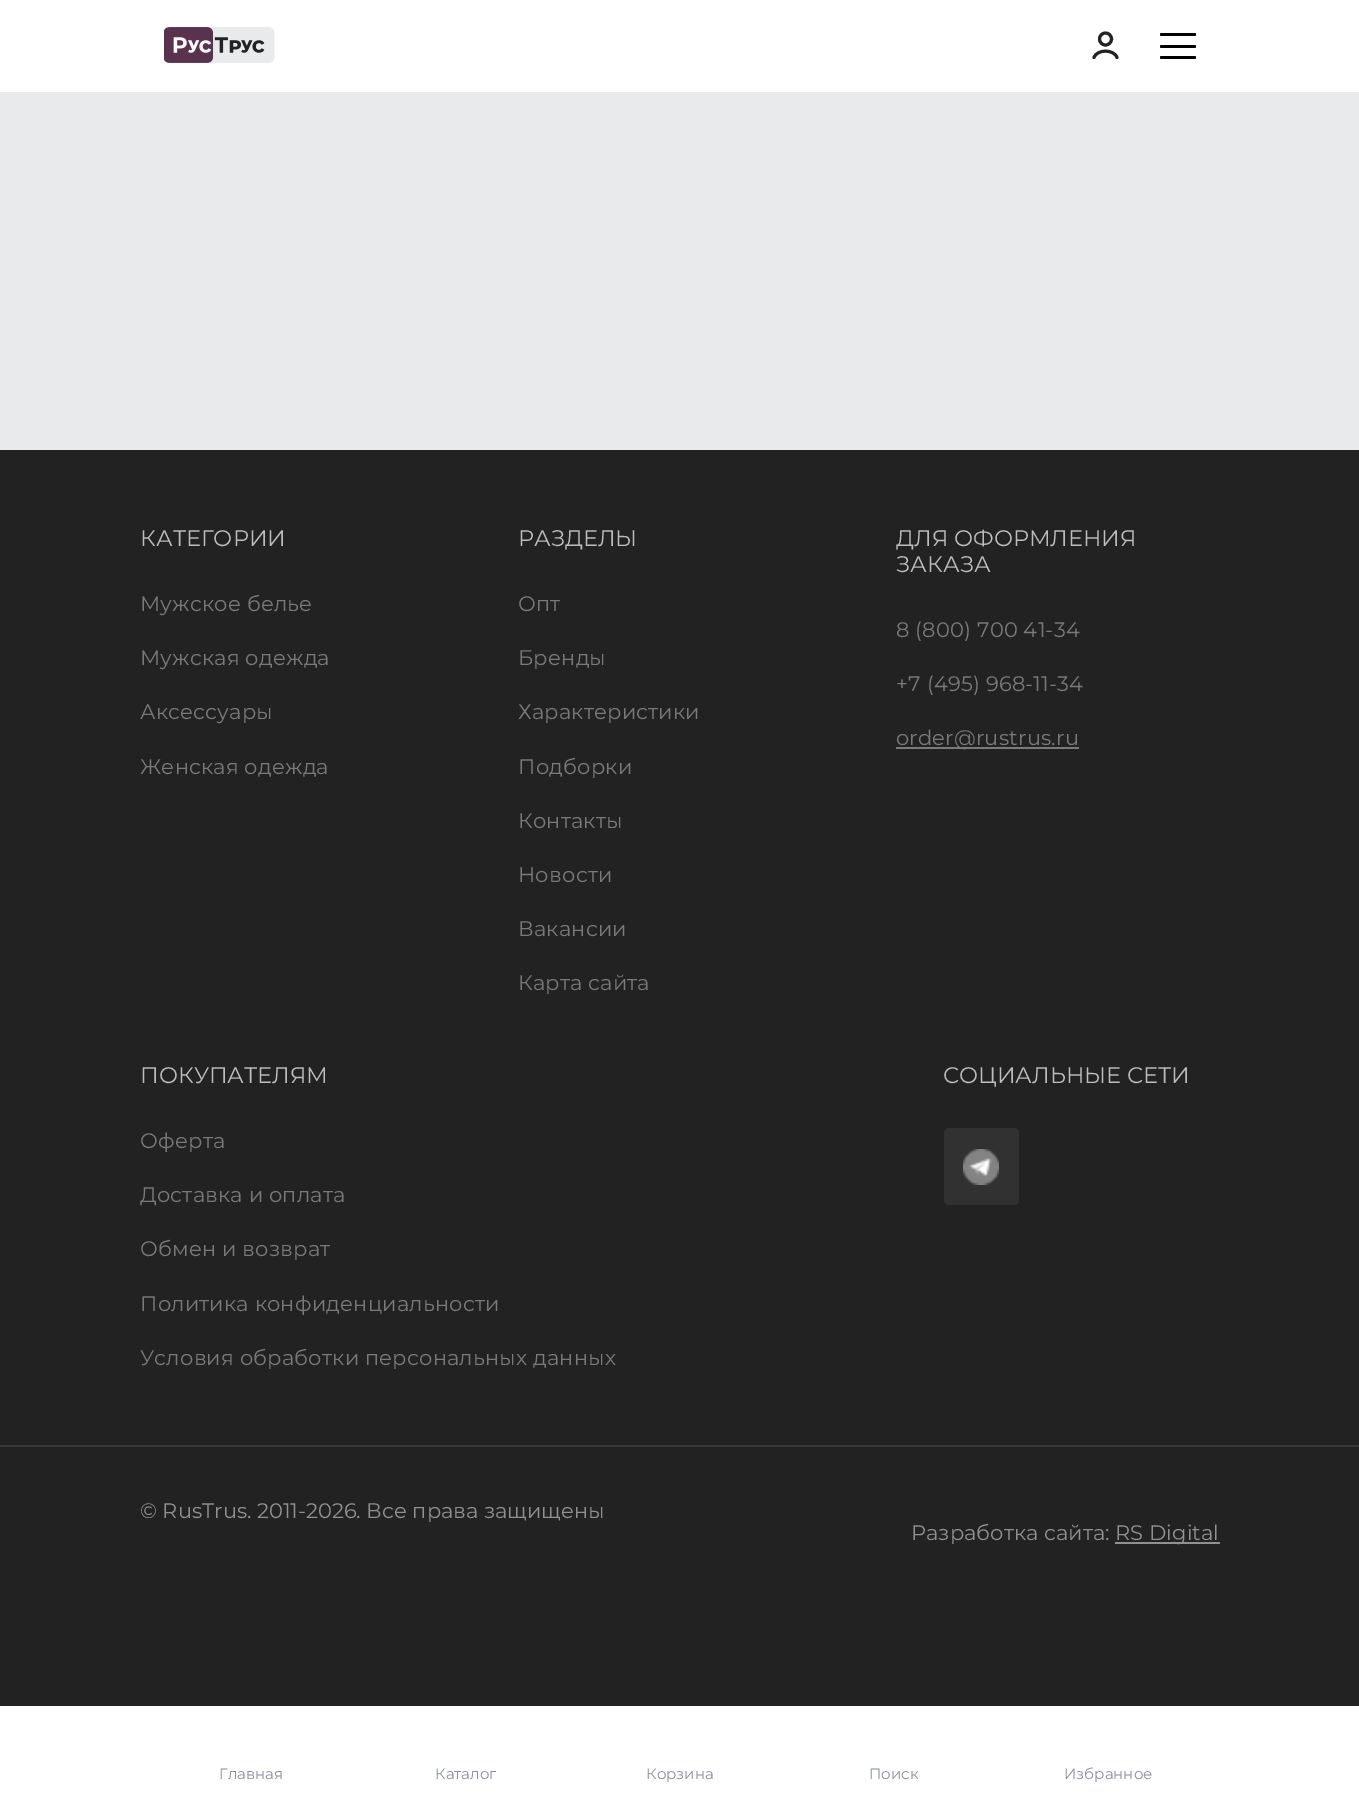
%!PS-Adobe-3.0
%%BoundingBox: 0 0 1359 1798
%%LanguageLevel: 3
%%Pages: 1
%%EndComments
%%BeginProlog
/rrect { 5 dict begin { /r /h /w /y /x } { exch def } forall
  x r add y moveto x w add y 2 copy h add r arct x w add y h add x 1 index r arct
  x y h add x y r arct x y 2 copy exch w add exch r arct closepath end } def
/drawimage { 5 dict begin { /h /w /y /x /name } { exch def } forall
  gsave x y translate w h scale
  w h 8 [w 0 0 h 0 0] name (r) file false 3 colorimage grestore end } def
%%EndProlog
%%BeginSetup
<< /PageSize [1359 1798] >> setpagedevice
%%EndSetup
%%Page: 1 1
0 1798 translate 1 -1 scale
4 setmiterlimit
1 setgray
0 0 1359 1798 rectfill
0.914 0.918 0.925 setrgbcolor
0 92 1359 358 rectfill
(images/1.raw) 164 27 111 36 drawimage
0.133 setgray
3 setlinewidth
1 setlinecap
newpath 1117 57.5 moveto 1114 49 1097 49 1094 57.5 curveto stroke
0 setlinecap
newpath 1105.5 39 6 0 360 arc closepath stroke
0 setgray
1160 33 36 3 1.5 rrect fill
1160 45 36 3 1.5 rrect fill
1160 56 36 3 1.5 rrect fill
0.133 setgray
0 450 1359 1256 rectfill
0.478 setgray
896 747 183 2 rectfill
0.192 setgray
944 1128 75 77 5 rrect fill
(images/2.raw) 963 1149 36 36 drawimage
0.224 setgray
0 1445 1359 2 rectfill
0.569 setgray
1115 1542 105 2 rectfill
/Montserrat-Regular [22.5 0 0 -22.5 0 0] selectfont
0.741 setgray
140 546 moveto (КАТЕГОРИИ) show
/Montserrat-Regular [21 0 0 -21 0 0] selectfont
0.478 setgray
140 611 moveto 0.2 0 (Мужское белье) ashow
140 665 moveto 0.2 0 (Мужская одежда) ashow
140 719 moveto 0.2 0 (Аксессуары) ashow
140 774 moveto 0.2 0 (Женская одежда) ashow
/Montserrat-Regular [22.5 0 0 -22.5 0 0] selectfont
0.741 setgray
518 546 moveto (РАЗДЕЛЫ) show
/Montserrat-Regular [21 0 0 -21 0 0] selectfont
0.478 setgray
518 611 moveto 0.2 0 (Опт) ashow
518 665 moveto 0.2 0 (Бренды) ashow
518 719 moveto 0.2 0 (Характеристики) ashow
518 774 moveto 0.2 0 (Подборки) ashow
518 828 moveto 0.2 0 (Контакты) ashow
518 882 moveto 0.2 0 (Новости) ashow
518 936 moveto 0.2 0 (Вакансии) ashow
518 990 moveto 0.2 0 (Карта сайта) ashow
/Montserrat-Regular [22.5 0 0 -22.5 0 0] selectfont
0.741 setgray
896 546 moveto (ДЛЯ ОФОРМЛЕНИЯ) show
896 572 moveto (ЗАКАЗА) show
/Montserrat-Regular [21 0 0 -21 0 0] selectfont
0.478 setgray
896 637 moveto 0.2 0 (8 \(800\) 700 41-34) ashow
896 691 moveto 0.2 0 (+7 \(495\) 968-11-34) ashow
896 745 moveto 0.2 0 (order@rustrus.ru) ashow
/Montserrat-Regular [22.5 0 0 -22.5 0 0] selectfont
0.741 setgray
140 1083 moveto (ПОКУПАТЕЛЯМ) show
/Montserrat-Regular [21 0 0 -21 0 0] selectfont
0.478 setgray
140 1148 moveto 0.2 0 (Оферта) ashow
140 1202 moveto 0.2 0 (Доставка и оплата) ashow
140 1256 moveto 0.2 0 (Обмен и возврат) ashow
140 1311 moveto 0.2 0 (Политика конфиденциальности) ashow
140 1365 moveto 0.2 0 (Условия обработки персональных данных) ashow
/Montserrat-Regular [22.5 0 0 -22.5 0 0] selectfont
0.741 setgray
943 1083 moveto (СОЦИАЛЬНЫЕ СЕТИ) show
/Montserrat-Regular [21 0 0 -21 0 0] selectfont
0.569 setgray
140 1518 moveto (© RusTrus. 2011-2026. Все права защищены) show
911 1540 moveto 0.1 0 (Разработка сайта:) ashow
1115 1540 moveto 0.1 0 (RS Digital) ashow
/Montserrat-Regular [15 0 0 -15 0 0] selectfont
0.533 0.569 0.616 setrgbcolor
219 1779 moveto (Главная) show
435 1779 moveto (Каталог) show
646 1779 moveto (Корзина) show
869 1779 moveto (Поиск) show
1064 1779 moveto (Избранное) show
showpage
%%EOF
